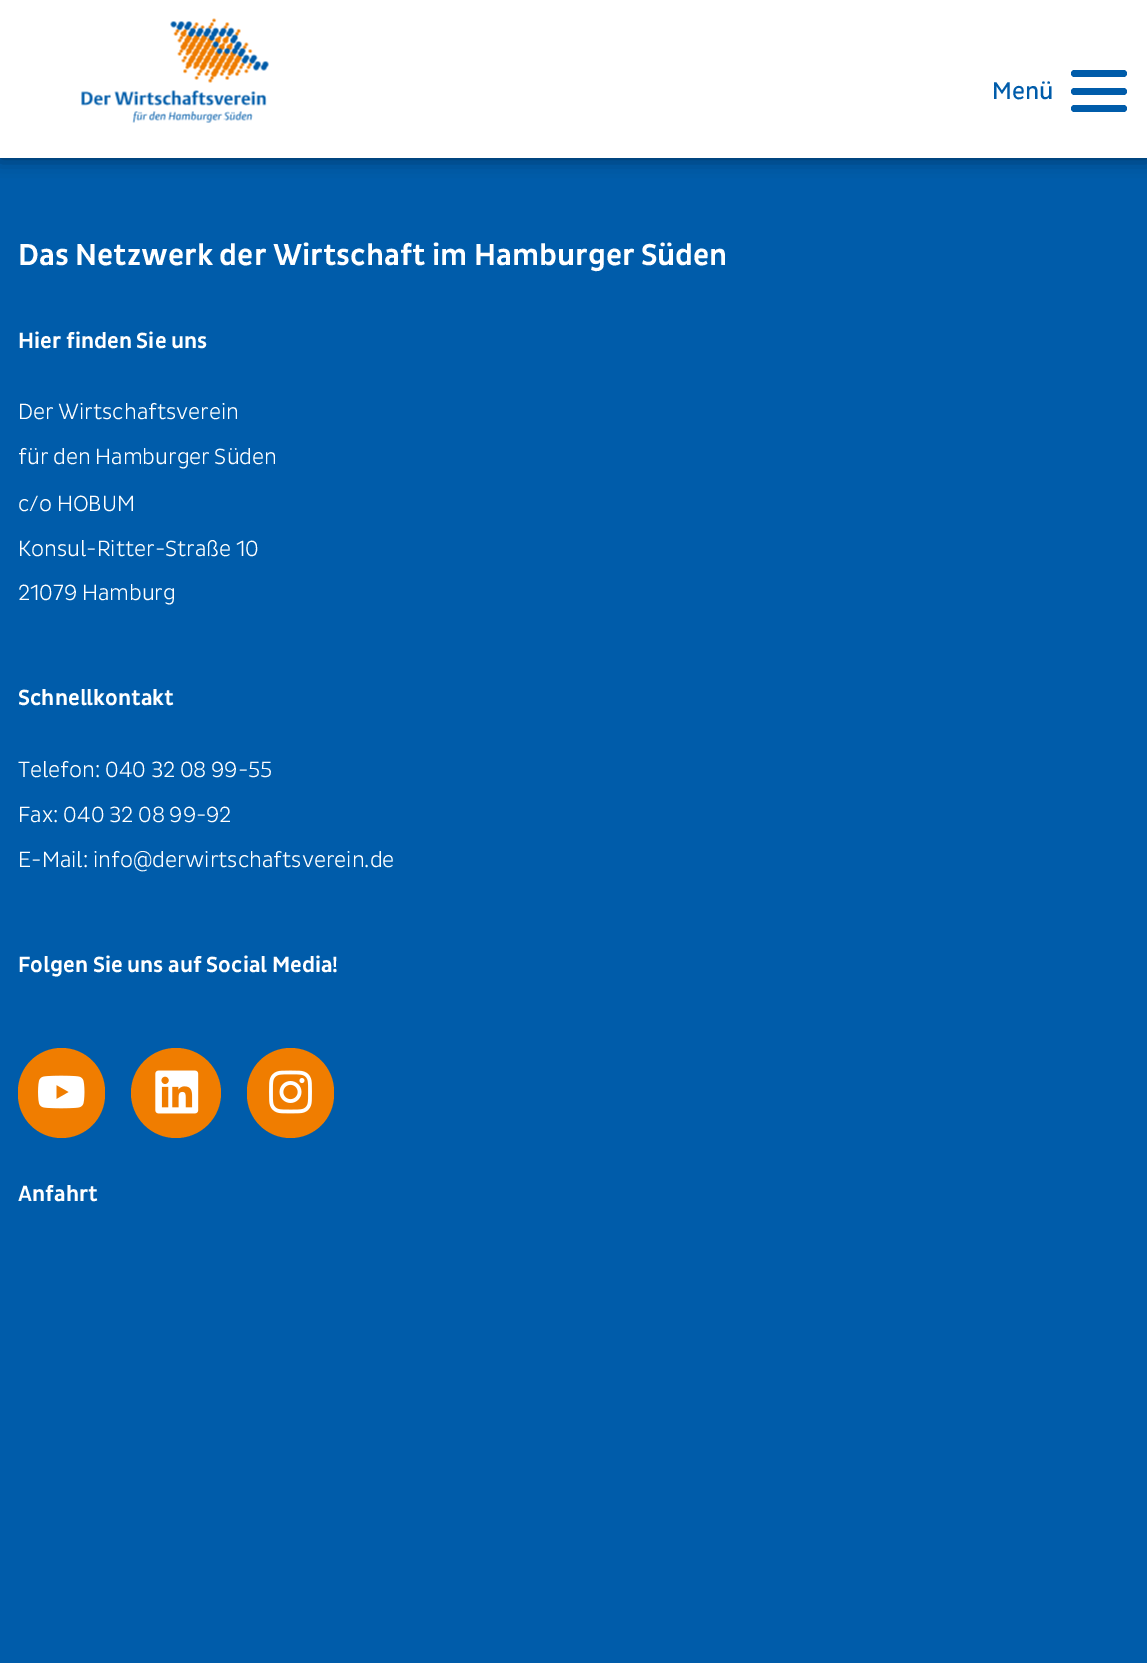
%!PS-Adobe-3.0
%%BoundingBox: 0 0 1147 1663
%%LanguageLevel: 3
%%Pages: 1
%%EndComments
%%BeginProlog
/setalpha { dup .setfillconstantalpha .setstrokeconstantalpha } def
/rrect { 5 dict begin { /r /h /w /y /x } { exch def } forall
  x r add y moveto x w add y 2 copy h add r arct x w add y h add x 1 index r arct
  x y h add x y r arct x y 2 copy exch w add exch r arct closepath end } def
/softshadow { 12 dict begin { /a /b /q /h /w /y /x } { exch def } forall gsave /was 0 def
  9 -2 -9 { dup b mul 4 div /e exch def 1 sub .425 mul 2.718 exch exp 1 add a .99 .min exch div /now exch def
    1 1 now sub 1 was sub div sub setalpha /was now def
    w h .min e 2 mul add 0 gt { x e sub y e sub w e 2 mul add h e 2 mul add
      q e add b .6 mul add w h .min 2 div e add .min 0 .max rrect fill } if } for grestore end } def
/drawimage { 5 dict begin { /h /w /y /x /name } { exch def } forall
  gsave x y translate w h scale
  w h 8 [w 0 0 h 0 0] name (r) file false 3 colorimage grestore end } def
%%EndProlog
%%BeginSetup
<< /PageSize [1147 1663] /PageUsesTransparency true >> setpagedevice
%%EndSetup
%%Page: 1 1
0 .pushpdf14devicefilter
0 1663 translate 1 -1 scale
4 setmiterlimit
0 0.361 0.667 setrgbcolor
0 0 1147 1663 rectfill
0 setgray
0 0 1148 158 0 9 0.5 softshadow
1 setgray
0 0 1147 158 rectfill
(images/1.raw) 81 18 188 105 drawimage
0 0.361 0.667 setrgbcolor
1071 88 56 7 3.5 rrect fill
1071 70 56 7 3.5 rrect fill
1071 105 56 7 3.5 rrect fill
0.941 0.49 0 setrgbcolor
18 1048 87 90 43.5 rrect fill
(images/2.raw) 38 1075 47 34 drawimage
newpath 176 1093 45 0 360 arc closepath fill
(images/3.raw) 155 1070 44 44 drawimage
247 1048 87 90 43.5 rrect fill
(images/4.raw) 269 1070 43 44 drawimage
/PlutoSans-Regular [24.5 0 0 -24.5 0 0] selectfont
0 0.361 0.667 setrgbcolor
992 99 moveto (Menü) show
/PlutoSans-Medium [30.8 0 0 -30.8 0 0] selectfont
1 setgray
18 265 moveto (Das Netzwerk der Wirtschaft im Hamburger Süden) show
/PlutoSans-Medium [22.4 0 0 -22.4 0 0] selectfont
18 348 moveto (Hier finden Sie uns) show
/PlutoSans-Light [22.4 0 0 -22.4 0 0] selectfont
18 419 moveto (Der Wirtschaftsverein) show
18 464 moveto (für den Hamburger Süden) show
18 511 moveto (c/o HOBUM) show
18 556 moveto (Konsul-Ritter-Straße 10) show
18 600 moveto (21079 Hamburg) show
/PlutoSans-Medium [22.4 0 0 -22.4 0 0] selectfont
18 705 moveto (Schnellkontakt) show
/PlutoSans-Light [22.4 0 0 -22.4 0 0] selectfont
18 777 moveto (Telefon: 040 32 08 99-55) show
18 822 moveto (Fax: 040 32 08 99-92) show
18 867 moveto (E-Mail: info@derwirtschaftsverein.de) show
/PlutoSans-Medium [22.4 0 0 -22.4 0 0] selectfont
18 972 moveto (Folgen Sie uns auf Social Media!) show
18 1201 moveto (Anfahrt) show
.poppdf14devicefilter showpage
%%EOF
